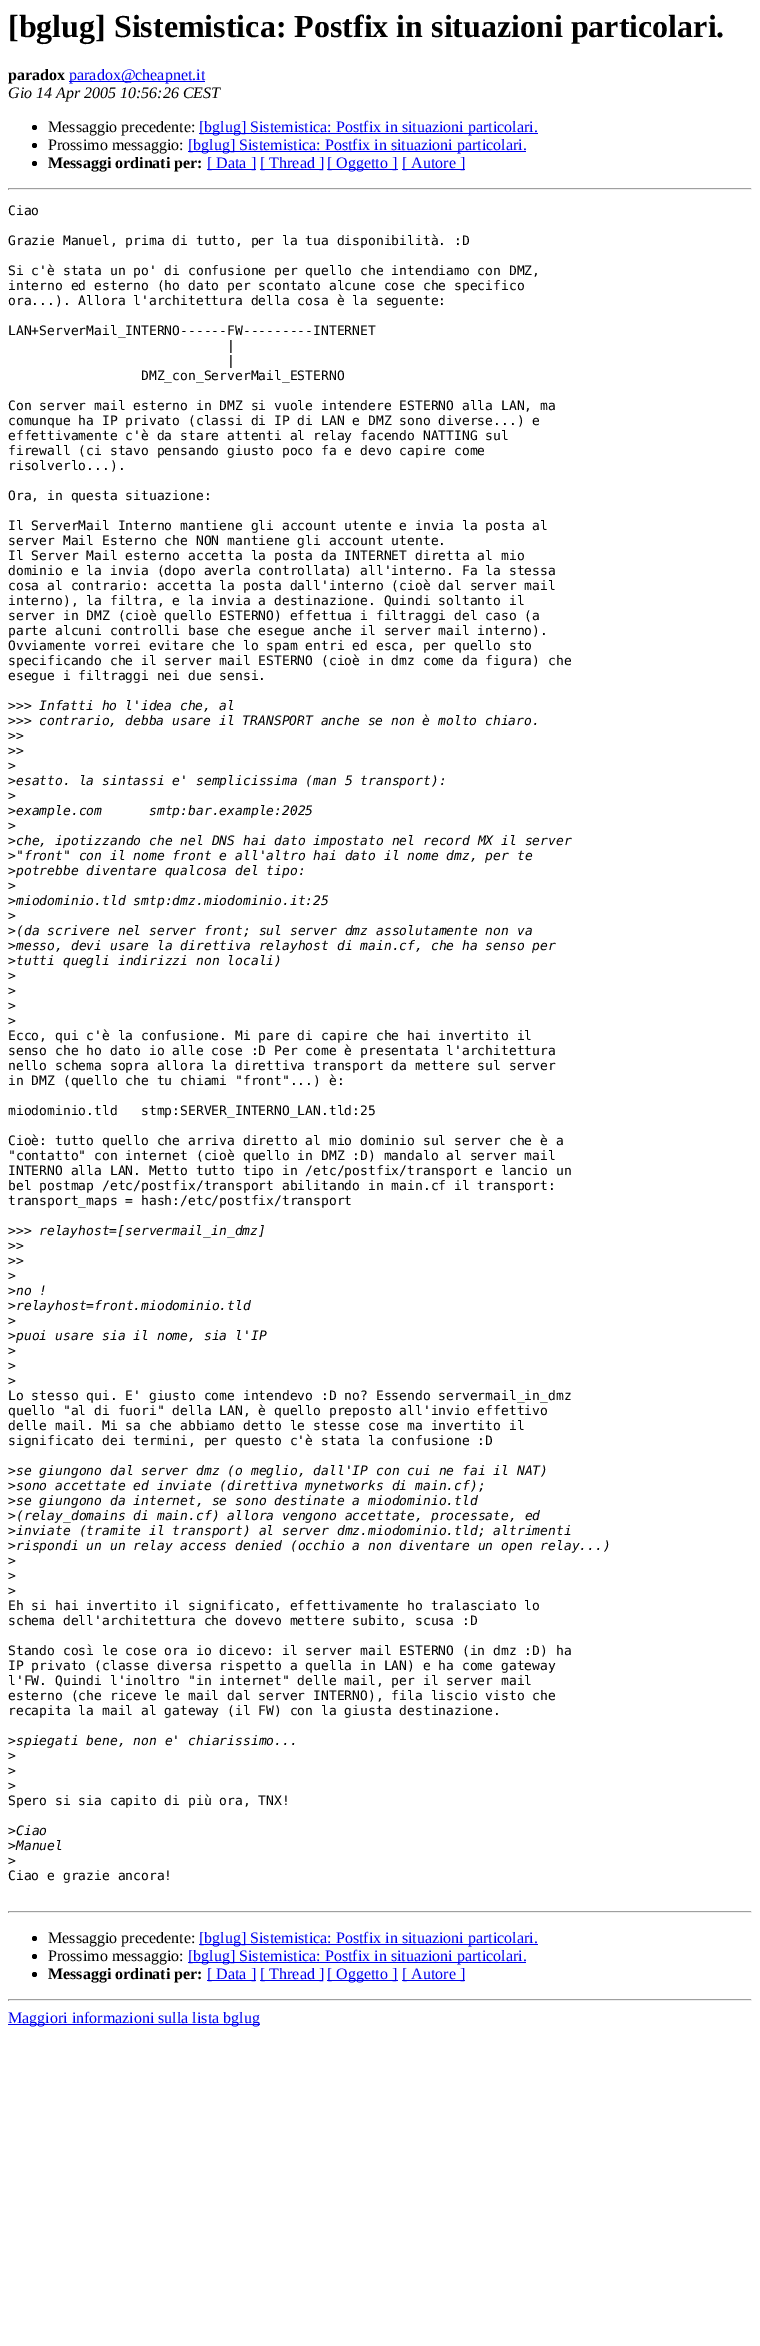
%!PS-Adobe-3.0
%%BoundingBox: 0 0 760 2346
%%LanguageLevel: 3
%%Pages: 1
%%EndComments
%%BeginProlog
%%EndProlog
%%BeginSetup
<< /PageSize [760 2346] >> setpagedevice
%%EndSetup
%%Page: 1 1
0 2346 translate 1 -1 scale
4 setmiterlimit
1 setgray
0 0 760 2346 rectfill
0 0 0.933 setrgbcolor
69 81 136 1 rectfill
0 setgray
newpath 34.5 127.5 2.5 0 360 arc closepath fill
0 0 0.933 setrgbcolor
199 133 339 1 rectfill
0 setgray
newpath 34.5 145.5 2.5 0 360 arc closepath fill
0 0 0.933 setrgbcolor
188 151 338 1 rectfill
0 setgray
newpath 34.5 163.5 2.5 0 360 arc closepath fill
0 0 0.933 setrgbcolor
207 169 49 1 rectfill
260 169 63 1 rectfill
327 169 71 1 rectfill
402 169 63 1 rectfill
0.624 setgray
8 188 744 1 rectfill
0.933 setgray
751 188 1 2 rectfill
8 189 744 1 rectfill
0.624 setgray
8 188 1 2 rectfill
8 1911 744 1 rectfill
0.933 setgray
751 1911 1 2 rectfill
8 1912 744 1 rectfill
0.624 setgray
8 1911 1 2 rectfill
0 setgray
newpath 34.5 1938.5 2.5 0 360 arc closepath fill
0 0 0.933 setrgbcolor
199 1944 339 1 rectfill
0 setgray
newpath 34.5 1956.5 2.5 0 360 arc closepath fill
0 0 0.933 setrgbcolor
188 1962 338 1 rectfill
0 setgray
newpath 34.5 1974.5 2.5 0 360 arc closepath fill
0 0 0.933 setrgbcolor
207 1980 49 1 rectfill
260 1980 63 1 rectfill
327 1980 71 1 rectfill
402 1980 63 1 rectfill
0.624 setgray
8 1999 744 1 rectfill
0.933 setgray
751 1999 1 2 rectfill
8 2000 744 1 rectfill
0.624 setgray
8 1999 1 2 rectfill
0 0 0.933 setrgbcolor
8 2024 252 1 rectfill
/LiberationSerif-Bold [32 0 0 -32 0 0] selectfont
0 setgray
8 37 moveto ([bglug] Sistemistica: Postfix in situazioni particolari.) show
/LiberationSerif-Bold [16 0 0 -16 0 0] selectfont
8 80 moveto (paradox) show
/LiberationSerif-Regular [16 0 0 -16 0 0] selectfont
0 0 0.933 setrgbcolor
69 80 moveto (paradox@cheapnet.it) show
/LiberationSerif-Italic [16 0 0 -16 0 0] selectfont
0 setgray
8 98 moveto (Gio 14 Apr 2005 10:56:26 CEST) show
/LiberationSerif-Regular [16 0 0 -16 0 0] selectfont
48 132 moveto (Messaggio precedente:) show
0 0 0.933 setrgbcolor
199 132 moveto ([bglug] Sistemistica: Postfix in situazioni particolari.) show
0 setgray
48 150 moveto (Prossimo messaggio:) show
0 0 0.933 setrgbcolor
188 150 moveto ([bglug] Sistemistica: Postfix in situazioni particolari.) show
/LiberationSerif-Bold [16 0 0 -16 0 0] selectfont
0 setgray
48 168 moveto (Messaggi ordinati per:) show
/LiberationSerif-Regular [16 0 0 -16 0 0] selectfont
0 0 0.933 setrgbcolor
207 168 moveto ([ Data ]) show
260 168 moveto ([ Thread ]) show
327 168 moveto ([ Oggetto ]) show
402 168 moveto ([ Autore ]) show
/DejaVuSansMono-Regular [13 0 0 -13 0 0] selectfont
0 setgray
8 215 moveto (Ciao) show
8 245 moveto (Grazie Manuel, prima di tutto, per la tua disponibilità. :D) show
8 275 moveto (Si c'è stata un po' di confusione per quello che intendiamo con DMZ,) show
8 290 moveto (interno ed esterno \(ho dato per scontato alcune cose che specifico) show
8 305 moveto (ora...\). Allora l'architettura della cosa è la seguente:) show
8 335 moveto (LAN+ServerMail_INTERNO------FW---------INTERNET) show
227 350 moveto (|) show
227 365 moveto (|) show
141 380 moveto (DMZ_con_ServerMail_ESTERNO) show
8 410 moveto (Con server mail esterno in DMZ si vuole intendere ESTERNO alla LAN, ma) show
8 425 moveto (comunque ha IP privato \(classi di IP di LAN e DMZ sono diverse...\) e) show
8 440 moveto (effettivamente c'è da stare attenti al relay facendo NATTING sul) show
8 455 moveto (firewall \(ci stavo pensando giusto poco fa e devo capire come) show
8 470 moveto (risolverlo...\).) show
8 500 moveto (Ora, in questa situazione:) show
8 530 moveto (Il ServerMail Interno mantiene gli account utente e invia la posta al) show
8 545 moveto (server Mail Esterno che NON mantiene gli account utente.) show
8 560 moveto (Il Server Mail esterno accetta la posta da INTERNET diretta al mio) show
8 575 moveto (dominio e la invia \(dopo averla controllata\) all'interno. Fa la stessa) show
8 590 moveto (cosa al contrario: accetta la posta dall'interno \(cioè dal server mail) show
8 605 moveto (interno\), la filtra, e la invia a destinazione. Quindi soltanto il) show
8 620 moveto (server in DMZ \(cioè quello ESTERNO\) effettua i filtraggi del caso \(a) show
8 635 moveto (parte alcuni controlli base che esegue anche il server mail interno\).) show
8 650 moveto (Ovviamente vorrei evitare che lo spam entri ed esca, per quello sto) show
8 665 moveto (specificando che il server mail ESTERNO \(cioè in dmz come da figura\) che) show
8 680 moveto (esegue i filtraggi nei due sensi.) show
8 710 moveto (>>>) show
/DejaVuSansMono-Italic [13 0 0 -13 0 0] selectfont
39 710 moveto (Infatti ho l'idea che, al) show
/DejaVuSansMono-Regular [13 0 0 -13 0 0] selectfont
8 725 moveto (>>>) show
/DejaVuSansMono-Italic [13 0 0 -13 0 0] selectfont
39 725 moveto (contrario, debba usare il TRANSPORT anche se non è molto chiaro.) show
/DejaVuSansMono-Regular [13 0 0 -13 0 0] selectfont
8 740 moveto (>>) show
8 755 moveto (>>) show
8 770 moveto (>) show
8 785 moveto (>) show
/DejaVuSansMono-Italic [13 0 0 -13 0 0] selectfont
16 785 moveto (esatto. la sintassi e' semplicissima \(man 5 transport\):) show
/DejaVuSansMono-Regular [13 0 0 -13 0 0] selectfont
8 800 moveto (>) show
8 815 moveto (>) show
/DejaVuSansMono-Italic [13 0 0 -13 0 0] selectfont
16 815 moveto (example.com      smtp:bar.example:2025) show
/DejaVuSansMono-Regular [13 0 0 -13 0 0] selectfont
8 830 moveto (>) show
8 845 moveto (>) show
/DejaVuSansMono-Italic [13 0 0 -13 0 0] selectfont
16 845 moveto (che, ipotizzando che nel DNS hai dato impostato nel record MX il server) show
/DejaVuSansMono-Regular [13 0 0 -13 0 0] selectfont
8 860 moveto (>) show
/DejaVuSansMono-Italic [13 0 0 -13 0 0] selectfont
16 860 moveto ("front" con il nome front e all'altro hai dato il nome dmz, per te) show
/DejaVuSansMono-Regular [13 0 0 -13 0 0] selectfont
8 875 moveto (>) show
/DejaVuSansMono-Italic [13 0 0 -13 0 0] selectfont
16 875 moveto (potrebbe diventare qualcosa del tipo:) show
/DejaVuSansMono-Regular [13 0 0 -13 0 0] selectfont
8 890 moveto (>) show
8 905 moveto (>) show
/DejaVuSansMono-Italic [13 0 0 -13 0 0] selectfont
16 905 moveto (miodominio.tld smtp:dmz.miodominio.it:25) show
/DejaVuSansMono-Regular [13 0 0 -13 0 0] selectfont
8 920 moveto (>) show
8 935 moveto (>) show
/DejaVuSansMono-Italic [13 0 0 -13 0 0] selectfont
16 935 moveto (\(da scrivere nel server front; sul server dmz assolutamente non va) show
/DejaVuSansMono-Regular [13 0 0 -13 0 0] selectfont
8 950 moveto (>) show
/DejaVuSansMono-Italic [13 0 0 -13 0 0] selectfont
16 950 moveto (messo, devi usare la direttiva relayhost di main.cf, che ha senso per) show
/DejaVuSansMono-Regular [13 0 0 -13 0 0] selectfont
8 965 moveto (>) show
/DejaVuSansMono-Italic [13 0 0 -13 0 0] selectfont
16 965 moveto (tutti quegli indirizzi non locali\)) show
/DejaVuSansMono-Regular [13 0 0 -13 0 0] selectfont
8 980 moveto (>) show
8 995 moveto (>) show
8 1010 moveto (>) show
8 1025 moveto (>) show
8 1040 moveto (Ecco, qui c'è la confusione. Mi pare di capire che hai invertito il) show
8 1055 moveto (senso che ho dato io alle cose :D Per come è presentata l'architettura) show
8 1070 moveto (nello schema sopra allora la direttiva transport da mettere sul server) show
8 1085 moveto (in DMZ \(quello che tu chiami "front"...\) è:) show
8 1115 moveto (miodominio.tld   stmp:SERVER_INTERNO_LAN.tld:25) show
8 1145 moveto (Cioè: tutto quello che arriva diretto al mio dominio sul server che è a) show
8 1160 moveto ("contatto" con internet \(cioè quello in DMZ :D\) mandalo al server mail) show
8 1175 moveto (INTERNO alla LAN. Metto tutto tipo in /etc/postfix/transport e lancio un) show
8 1190 moveto (bel postmap /etc/postfix/transport abilitando in main.cf il transport:) show
8 1205 moveto (transport_maps = hash:/etc/postfix/transport) show
8 1235 moveto (>>>) show
/DejaVuSansMono-Italic [13 0 0 -13 0 0] selectfont
39 1235 moveto (relayhost=[servermail_in_dmz]) show
/DejaVuSansMono-Regular [13 0 0 -13 0 0] selectfont
8 1250 moveto (>>) show
8 1265 moveto (>>) show
8 1280 moveto (>) show
8 1295 moveto (>) show
/DejaVuSansMono-Italic [13 0 0 -13 0 0] selectfont
16 1295 moveto (no !) show
/DejaVuSansMono-Regular [13 0 0 -13 0 0] selectfont
8 1310 moveto (>) show
/DejaVuSansMono-Italic [13 0 0 -13 0 0] selectfont
16 1310 moveto (relayhost=front.miodominio.tld) show
/DejaVuSansMono-Regular [13 0 0 -13 0 0] selectfont
8 1325 moveto (>) show
8 1340 moveto (>) show
/DejaVuSansMono-Italic [13 0 0 -13 0 0] selectfont
16 1340 moveto (puoi usare sia il nome, sia l'IP) show
/DejaVuSansMono-Regular [13 0 0 -13 0 0] selectfont
8 1355 moveto (>) show
8 1370 moveto (>) show
8 1385 moveto (>) show
8 1400 moveto (Lo stesso qui. E' giusto come intendevo :D no? Essendo servermail_in_dmz) show
8 1415 moveto (quello "al di fuori" della LAN, è quello preposto all'invio effettivo) show
8 1430 moveto (delle mail. Mi sa che abbiamo detto le stesse cose ma invertito il) show
8 1445 moveto (significato dei termini, per questo c'è stata la confusione :D) show
8 1475 moveto (>) show
/DejaVuSansMono-Italic [13 0 0 -13 0 0] selectfont
16 1475 moveto (se giungono dal server dmz \(o meglio, dall'IP con cui ne fai il NAT\)) show
/DejaVuSansMono-Regular [13 0 0 -13 0 0] selectfont
8 1490 moveto (>) show
/DejaVuSansMono-Italic [13 0 0 -13 0 0] selectfont
16 1490 moveto (sono accettate ed inviate \(direttiva mynetworks di main.cf\);) show
/DejaVuSansMono-Regular [13 0 0 -13 0 0] selectfont
8 1505 moveto (>) show
/DejaVuSansMono-Italic [13 0 0 -13 0 0] selectfont
16 1505 moveto (se giungono da internet, se sono destinate a miodominio.tld) show
/DejaVuSansMono-Regular [13 0 0 -13 0 0] selectfont
8 1520 moveto (>) show
/DejaVuSansMono-Italic [13 0 0 -13 0 0] selectfont
16 1520 moveto (\(relay_domains di main.cf\) allora vengono accettate, processate, ed) show
/DejaVuSansMono-Regular [13 0 0 -13 0 0] selectfont
8 1535 moveto (>) show
/DejaVuSansMono-Italic [13 0 0 -13 0 0] selectfont
16 1535 moveto (inviate \(tramite il transport\) al server dmz.miodominio.tld; altrimenti) show
/DejaVuSansMono-Regular [13 0 0 -13 0 0] selectfont
8 1550 moveto (>) show
/DejaVuSansMono-Italic [13 0 0 -13 0 0] selectfont
16 1550 moveto (rispondi un un relay access denied \(occhio a non diventare un open relay...\)) show
/DejaVuSansMono-Regular [13 0 0 -13 0 0] selectfont
8 1565 moveto (>) show
8 1580 moveto (>) show
8 1595 moveto (>) show
8 1610 moveto (Eh si hai invertito il significato, effettivamente ho tralasciato lo) show
8 1625 moveto (schema dell'architettura che dovevo mettere subito, scusa :D) show
8 1655 moveto (Stando così le cose ora io dicevo: il server mail ESTERNO \(in dmz :D\) ha) show
8 1670 moveto (IP privato \(classe diversa rispetto a quella in LAN\) e ha come gateway) show
8 1685 moveto (l'FW. Quindi l'inoltro "in internet" delle mail, per il server mail) show
8 1700 moveto (esterno \(che riceve le mail dal server INTERNO\), fila liscio visto che) show
8 1715 moveto (recapita la mail al gateway \(il FW\) con la giusta destinazione.) show
8 1745 moveto (>) show
/DejaVuSansMono-Italic [13 0 0 -13 0 0] selectfont
16 1745 moveto (spiegati bene, non e' chiarissimo...) show
/DejaVuSansMono-Regular [13 0 0 -13 0 0] selectfont
8 1760 moveto (>) show
8 1775 moveto (>) show
8 1790 moveto (>) show
8 1805 moveto (Spero si sia capito di più ora, TNX!) show
8 1835 moveto (>) show
/DejaVuSansMono-Italic [13 0 0 -13 0 0] selectfont
16 1835 moveto (Ciao) show
/DejaVuSansMono-Regular [13 0 0 -13 0 0] selectfont
8 1850 moveto (>) show
/DejaVuSansMono-Italic [13 0 0 -13 0 0] selectfont
16 1850 moveto (Manuel) show
/DejaVuSansMono-Regular [13 0 0 -13 0 0] selectfont
8 1865 moveto (>) show
8 1880 moveto (Ciao e grazie ancora!) show
/LiberationSerif-Regular [16 0 0 -16 0 0] selectfont
48 1943 moveto (Messaggio precedente:) show
0 0 0.933 setrgbcolor
199 1943 moveto ([bglug] Sistemistica: Postfix in situazioni particolari.) show
0 setgray
48 1961 moveto (Prossimo messaggio:) show
0 0 0.933 setrgbcolor
188 1961 moveto ([bglug] Sistemistica: Postfix in situazioni particolari.) show
/LiberationSerif-Bold [16 0 0 -16 0 0] selectfont
0 setgray
48 1979 moveto (Messaggi ordinati per:) show
/LiberationSerif-Regular [16 0 0 -16 0 0] selectfont
0 0 0.933 setrgbcolor
207 1979 moveto ([ Data ]) show
260 1979 moveto ([ Thread ]) show
327 1979 moveto ([ Oggetto ]) show
402 1979 moveto ([ Autore ]) show
8 2023 moveto (Maggiori informazioni sulla lista bglug) show
showpage
%%EOF
